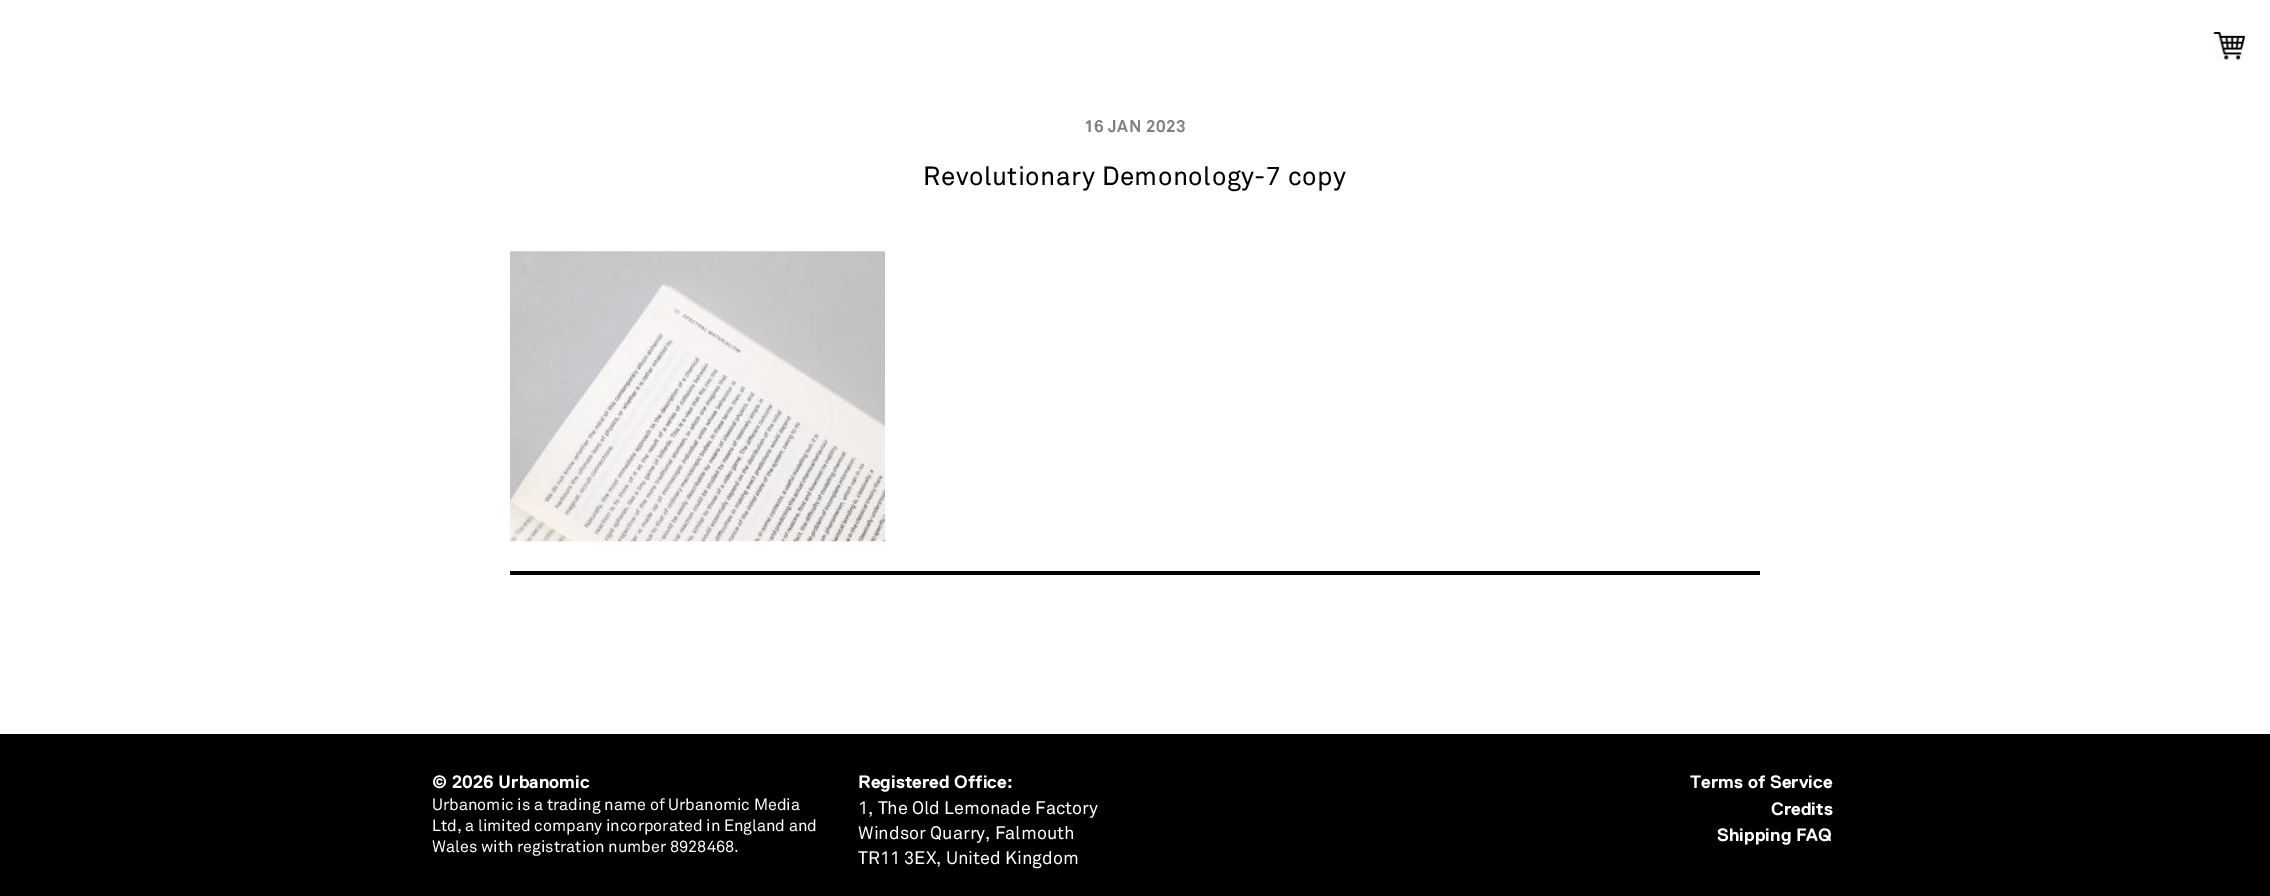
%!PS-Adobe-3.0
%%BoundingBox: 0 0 2270 896
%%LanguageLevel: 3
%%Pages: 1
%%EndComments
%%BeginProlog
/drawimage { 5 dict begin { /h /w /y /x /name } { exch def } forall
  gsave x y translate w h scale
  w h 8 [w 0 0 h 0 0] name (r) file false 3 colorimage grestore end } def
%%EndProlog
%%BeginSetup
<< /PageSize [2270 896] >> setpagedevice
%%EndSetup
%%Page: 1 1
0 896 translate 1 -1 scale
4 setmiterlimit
1 setgray
0 0 2270 896 rectfill
(images/1.raw) 2213 32 32 28 drawimage
(images/2.raw) 510 251 375 291 drawimage
0 setgray
510 571 1250 4 rectfill
0 734 2270 162 rectfill
/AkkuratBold-Bold [17 0 0 -17 0 0] selectfont
0.502 setgray
1084 132 moveto 0.5 0 (16 JAN 2023) ashow
/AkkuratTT-Regular [26 0 0 -26 0 0] selectfont
0 setgray
923 185 moveto 0.5 0 (Revolutionary Demonology-7 copy) ashow
/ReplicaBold-Regular [18 0 0 -18 0 0] selectfont
1 setgray
432 788 moveto (© 2026 Urbanomic) show
/AkkuratTT-Regular [16.2 0 0 -16.2 0 0] selectfont
432 810 moveto (Urbanomic is a trading name of Urbanomic Media) show
432 831 moveto (Ltd, a limited company incorporated in England and) show
432 852 moveto (Wales with registration number 8928468.) show
/ReplicaBold-Regular [18 0 0 -18 0 0] selectfont
858 788 moveto (Registered Office:) show
/AkkuratTT-Regular [18 0 0 -18 0 0] selectfont
858 814 moveto (1, The Old Lemonade Factory) show
858 839 moveto (Windsor Quarry, Falmouth) show
858 864 moveto (TR11 3EX, United Kingdom) show
/ReplicaBold-Regular [18 0 0 -18 0 0] selectfont
1690 788 moveto (Terms of Service) show
1771 815 moveto (Credits) show
1717 841 moveto (Shipping FAQ) show
showpage
%%EOF
